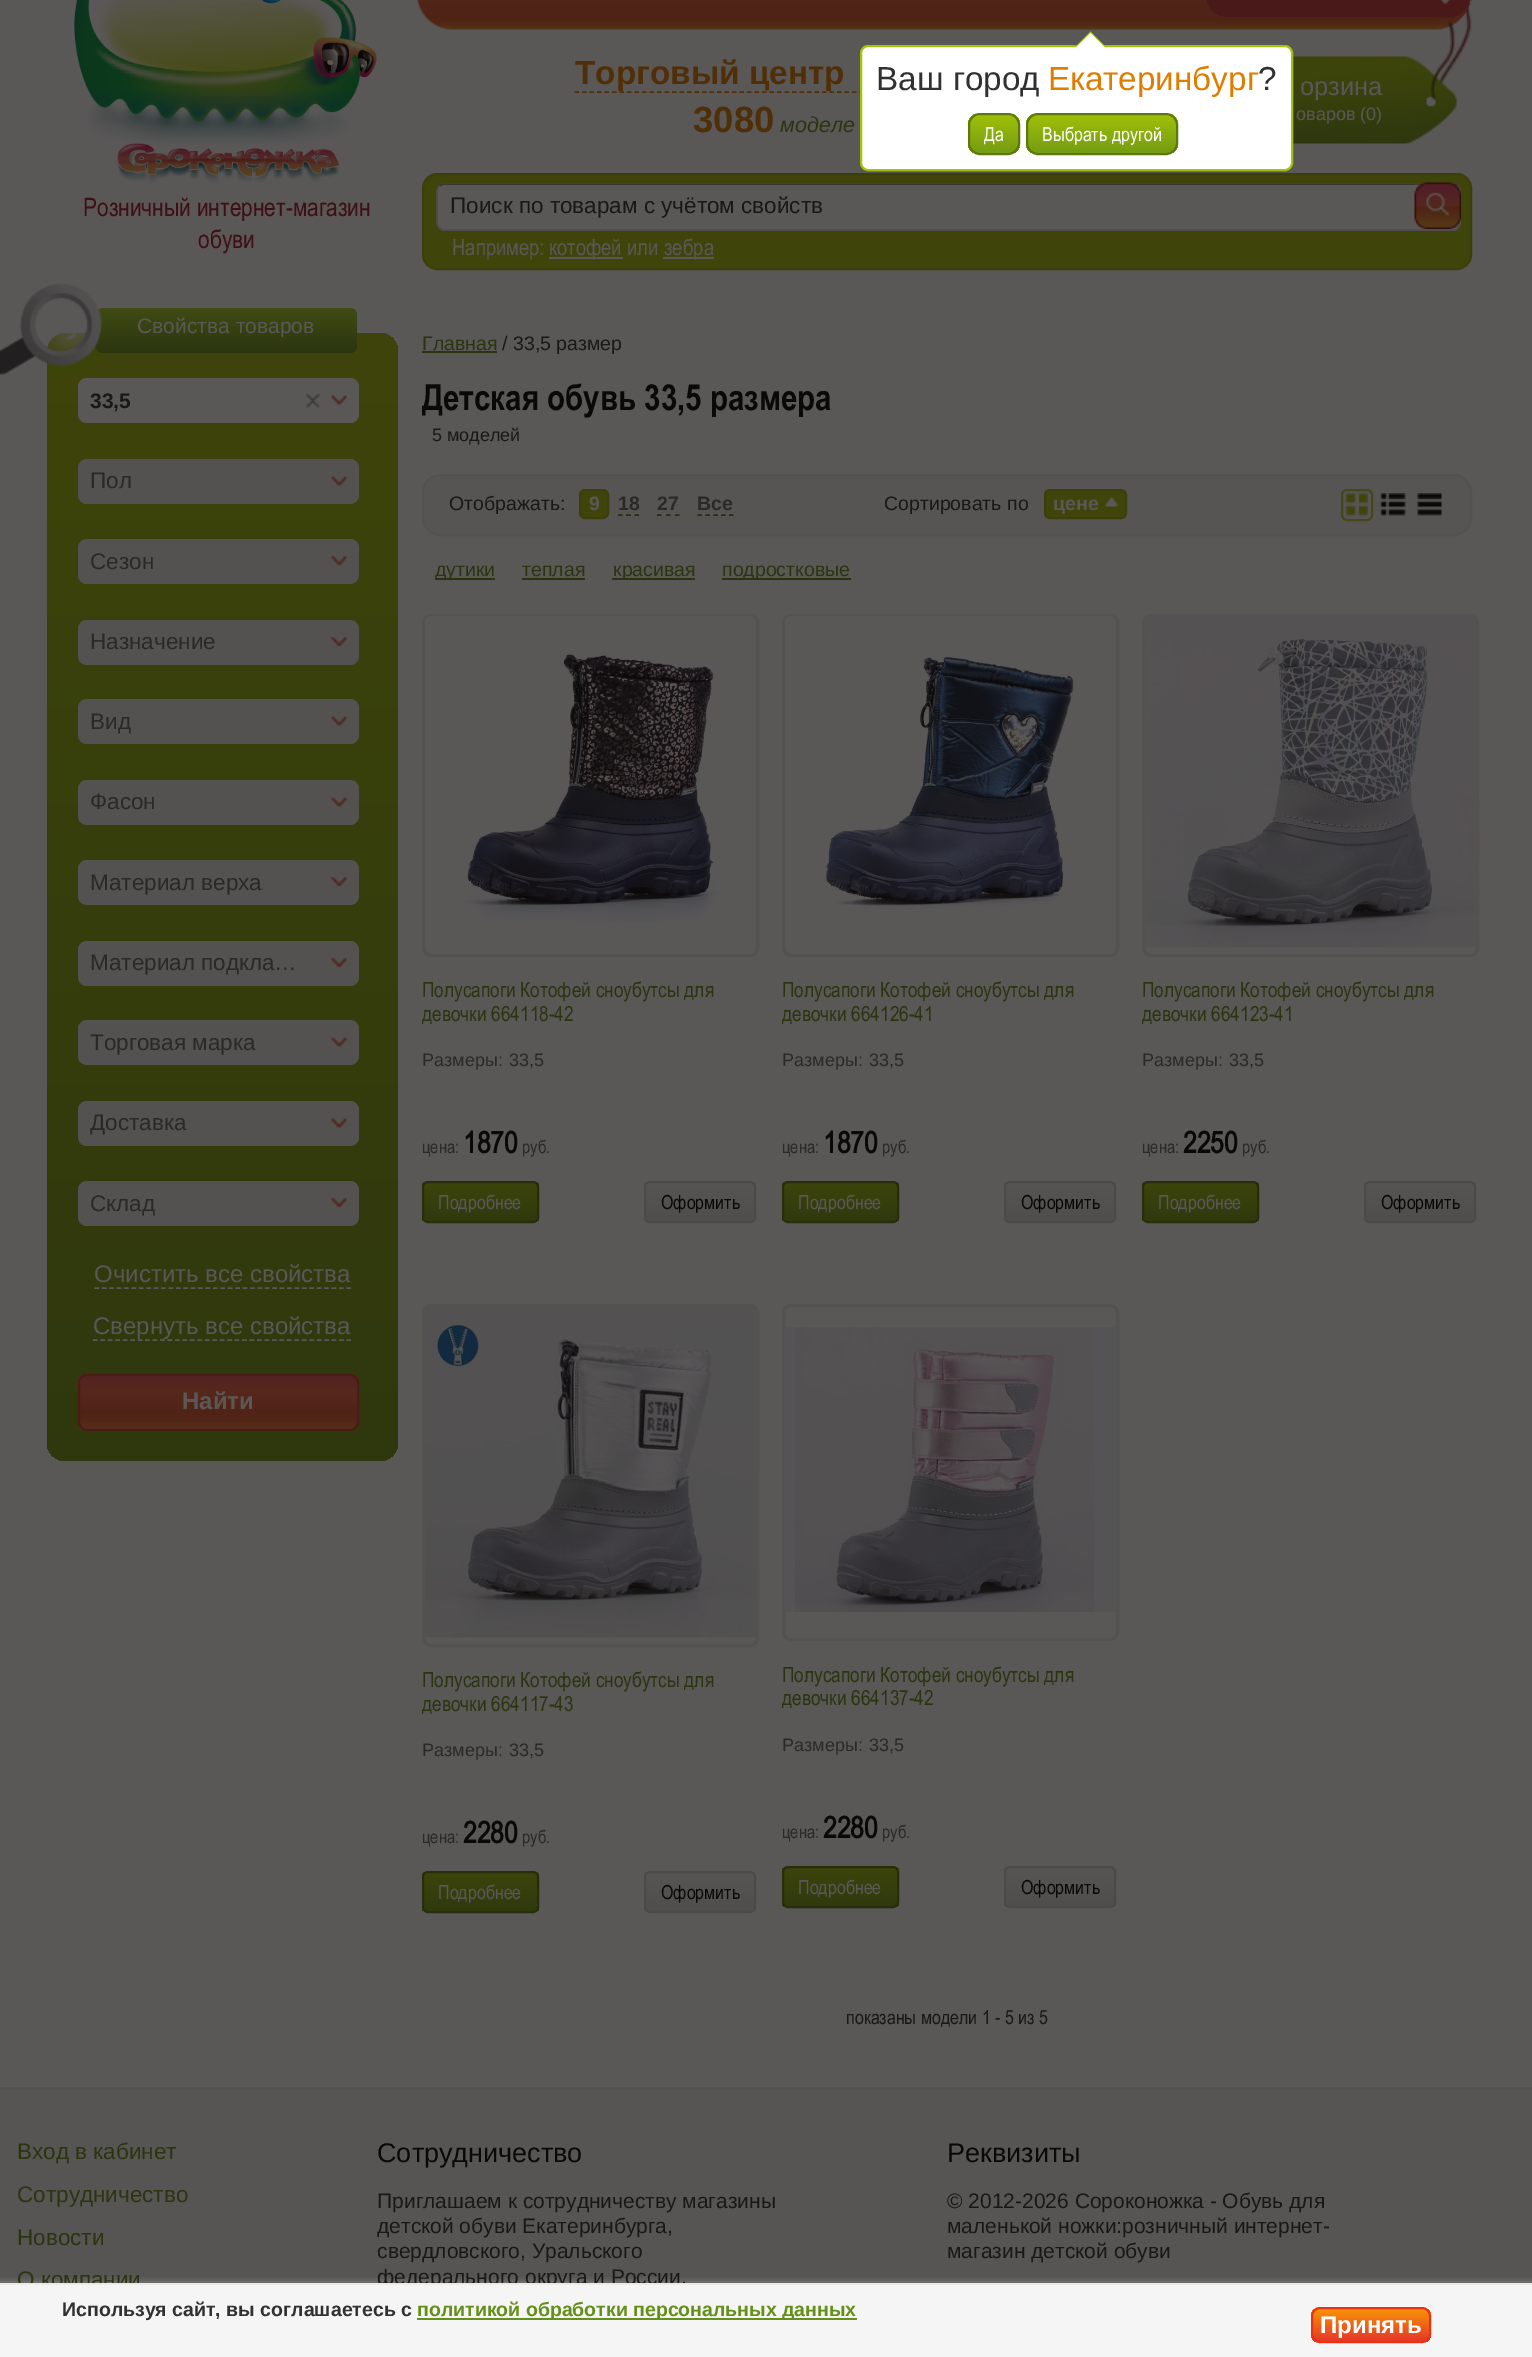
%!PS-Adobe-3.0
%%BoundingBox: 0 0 1532 2357
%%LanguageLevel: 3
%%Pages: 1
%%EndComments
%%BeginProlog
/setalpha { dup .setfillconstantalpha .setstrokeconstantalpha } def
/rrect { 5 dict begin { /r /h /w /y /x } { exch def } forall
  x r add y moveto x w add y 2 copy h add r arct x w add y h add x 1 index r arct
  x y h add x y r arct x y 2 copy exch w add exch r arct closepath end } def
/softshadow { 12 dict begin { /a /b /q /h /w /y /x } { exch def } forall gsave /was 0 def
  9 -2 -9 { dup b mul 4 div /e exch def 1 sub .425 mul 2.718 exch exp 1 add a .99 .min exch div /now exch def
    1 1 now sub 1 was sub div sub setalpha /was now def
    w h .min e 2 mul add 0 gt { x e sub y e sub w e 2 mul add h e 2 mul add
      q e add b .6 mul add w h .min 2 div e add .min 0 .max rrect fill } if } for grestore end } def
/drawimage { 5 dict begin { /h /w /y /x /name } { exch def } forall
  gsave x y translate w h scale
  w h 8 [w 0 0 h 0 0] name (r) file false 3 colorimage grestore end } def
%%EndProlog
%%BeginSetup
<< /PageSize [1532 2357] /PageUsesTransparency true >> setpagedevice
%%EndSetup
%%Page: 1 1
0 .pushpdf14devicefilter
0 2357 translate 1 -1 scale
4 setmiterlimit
0.353 0.341 0.341 setrgbcolor
0 0 1532 2357 rectfill
(images/1.raw) 74 0 303 183 drawimage
(images/2.raw) 456 0 977 30 drawimage
(images/3.raw) 417 0 39 30 drawimage
(images/5.raw) 1432 0 40 30 drawimage
(images/6.raw) 1293 2 179 142 drawimage
0.286 0.098 0.102 setrgbcolor
1206 -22 258 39 22 rrect fill
(images/4.raw) 1437 0 33 18 drawimage
0.314 0.184 0.031 setrgbcolor
1.5 setlinewidth
[4.5 3] 0 setdash
newpath 574.5 92 moveto 1104 92 lineto stroke
1 setgray
861 46 431 124 7 rrect gsave fill grestore
0.643 0.761 0.027 setrgbcolor
2 setlinewidth
[] 0 setdash
stroke
newpath 1105.5 46.5 moveto 1075.5 46.5 lineto 1090.5 31.5 lineto closepath fill
1 setgray
newpath 1105.5 48 moveto 1075.5 48 lineto 1090.5 33 lineto closepath fill
gsave
968 113 52 42 12 rrect clip newpath
gsave newpath 968 114 moveto 1020 114 lineto 1020 153 lineto 968 153 lineto closepath clip newpath
<< /ShadingType 2 /ColorSpace /DeviceRGB /Coords [994 114 994 153] /Extend [true true] /Function << /FunctionType 2 /Domain [0 1] /C0 [0.631 0.753 0.031] /C1 [0.459 0.612 0.078] /N 1 >> >> shfill grestore
grestore
0.361 0.478 0.043 setrgbcolor
969 114 50 40 11 rrect stroke
gsave
1026 113 152 42 12 rrect clip newpath
gsave newpath 1026 114 moveto 1178 114 lineto 1178 153 lineto 1026 153 lineto closepath clip newpath
<< /ShadingType 2 /ColorSpace /DeviceRGB /Coords [1102 114 1102 153] /Extend [true true] /Function << /FunctionType 2 /Domain [0 1] /C0 [0.631 0.753 0.031] /C1 [0.459 0.612 0.078] /N 1 >> >> shfill grestore
grestore
1027 114 150 40 11 rrect stroke
0.243 0.267 0.039 setrgbcolor
423 174 1048 95 14 rrect gsave fill grestore
0.227 0.247 0.043 setrgbcolor
stroke
0.353 0.341 0.341 setrgbcolor
437 183 1024 48 9 rrect fill
0.22 0.22 0.196 setrgbcolor
1.5 setlinewidth
newpath 439.5 186 moveto 441 184.5 443.5 184 445.5 184 curveto 1452 184 lineto 1454 184 1456.5 184.5 1458 186 curveto stroke
0.31 0.302 0.294 setrgbcolor
newpath 1458 186 moveto 1459.5 187.5 1460 190 1460 192 curveto 1460 222 lineto 1460 224 1459.5 226.5 1458 228 curveto 1456.5 229.5 1454 230 1452 230 curveto 445.5 230 lineto 443.5 230 441 229.5 439.5 228 curveto 438 226.5 437 224 437 222 curveto 437 192 lineto 437 190 438 187.5 439.5 186 curveto stroke
(images/7.raw) 1414 182 47 47 drawimage
0.353 0.341 0.341 setrgbcolor
549 257 74 2 rectfill
663 257 51 2 rectfill
gsave 47 333 351 1128 18 rrect clip newpath
<< /ShadingType 2 /ColorSpace /DeviceRGB /Coords [222 333 222 1461] /Extend [true true] /Function << /FunctionType 2 /Domain [0 1] /C0 [0.243 0.267 0.039] /C1 [0.184 0.22 0.055] /N 1 >> >> shfill grestore
gsave 95 308 262 45 8 rrect clip newpath
<< /ShadingType 2 /ColorSpace /DeviceRGB /Coords [226 353 226 308] /Extend [true true] /Function << /FunctionType 2 /Domain [0 1] /C0 [0.165 0.204 0.059] /C1 [0.251 0.298 0.075] /N 1 >> >> shfill grestore
(images/8.raw) 0 283 102 92 drawimage
78 378 281 45 9 rrect fill
(images/9.raw) 306 394 14 14 drawimage
(images/10.raw) 331 395 16 10 drawimage
0.329 0.322 0.314 setrgbcolor
78 459 281 45 9 rrect fill
(images/11.raw) 331 476 16 10 drawimage
78 539 281 45 9 rrect fill
(images/12.raw) 331 556 16 9 drawimage
78 620 281 45 9 rrect fill
(images/12.raw) 331 637 16 9 drawimage
78 699 281 45 9 rrect fill
(images/11.raw) 331 716 16 10 drawimage
78 780 281 45 9 rrect fill
(images/11.raw) 331 797 16 10 drawimage
78 860 281 45 9 rrect fill
(images/12.raw) 331 877 16 9 drawimage
78 941 281 45 9 rrect fill
(images/12.raw) 331 958 16 9 drawimage
78 1020 281 45 9 rrect fill
(images/11.raw) 331 1037 16 10 drawimage
78 1101 281 45 9 rrect fill
(images/11.raw) 331 1118 16 10 drawimage
78 1181 281 45 9 rrect fill
(images/12.raw) 331 1198 16 9 drawimage
0.353 0.341 0.341 setrgbcolor
[4.5 2.91] 0 setdash
newpath 94.5 1288 moveto 351 1288 lineto stroke
[4.5 2.96] 0 setdash
newpath 93 1340 moveto 351 1340 lineto stroke
(images/13.raw) 78 1373 281 57 drawimage
0.29 0.11 0.086 setrgbcolor
2 setlinewidth
[] 0 setdash
79 1375 279 55 8 rrect stroke
0.165 0.208 0.063 setrgbcolor
422 351 75 2 rectfill
0.341 0.329 0.329 setrgbcolor
423 475 1048 60 17 rrect gsave fill grestore
0.329 0.318 0.318 setrgbcolor
stroke
0.243 0.267 0.039 setrgbcolor
580 490 28 28 5 rrect gsave fill grestore
0.227 0.247 0.043 setrgbcolor
stroke
0.169 0.18 0.031 setrgbcolor
1.5 setlinewidth
newpath 618 515 moveto 622.5 515 lineto 626 515 moveto 631 515 lineto 634.5 515 moveto 639 515 lineto stroke
newpath 657 515 moveto 661.5 515 lineto 666 515 moveto 670.5 515 lineto 675 515 moveto 679.5 515 lineto stroke
[4.5 3.38] 0 setdash
newpath 697.5 515 moveto 733.5 515 lineto stroke
0.243 0.267 0.039 setrgbcolor
1045 490 81 28 5 rrect gsave fill grestore
0.227 0.247 0.043 setrgbcolor
2 setlinewidth
[] 0 setdash
stroke
(images/14.raw) 1105 497 13 10 drawimage
0.259 0.282 0.09 setrgbcolor
1342 490 30 30 5 rrect stroke
(images/15.raw) 1345 492 23 24 drawimage
(images/16.raw) 1380 493 26 23 drawimage
(images/17.raw) 1417 493 25 23 drawimage
0.165 0.208 0.063 setrgbcolor
435 578 60 2 rectfill
522 578 63 2 rectfill
612 578 83 2 rectfill
722 578 129 2 rectfill
0.329 0.318 0.318 setrgbcolor
3 setlinewidth
423.5 615.5 334 340 7.5 rrect stroke
(images/18.raw) 424 616 332 331 drawimage
gsave
422 1181 117 42 6 rrect clip newpath
gsave newpath 422 1182 moveto 539 1182 lineto 539 1221 lineto 422 1221 lineto closepath clip newpath
<< /ShadingType 2 /ColorSpace /DeviceRGB /Coords [480 1182 480 1221] /Extend [true true] /Function << /FunctionType 2 /Domain [0 1] /C0 [0.239 0.267 0.043] /C1 [0.184 0.224 0.055] /N 1 >> >> shfill grestore
grestore
0.157 0.18 0.047 setrgbcolor
2 setlinewidth
423 1182 115 40 5 rrect stroke
gsave
644 1181 112 42 6 rrect clip newpath
gsave newpath 644 1182 moveto 756 1182 lineto 756 1221 lineto 644 1221 lineto closepath clip newpath
<< /ShadingType 2 /ColorSpace /DeviceRGB /Coords [700 1182 700 1221] /Extend [true true] /Function << /FunctionType 2 /Domain [0 1] /C0 [0.341 0.329 0.329] /C1 [0.314 0.302 0.302] /N 1 >> >> shfill grestore
grestore
0.298 0.286 0.286 setrgbcolor
645 1182 110 40 5 rrect stroke
0.329 0.318 0.318 setrgbcolor
3 setlinewidth
783.5 615.5 334 340 7.5 rrect stroke
(images/19.raw) 784 616 332 331 drawimage
gsave
782 1181 117 42 6 rrect clip newpath
gsave newpath 782 1182 moveto 899 1182 lineto 899 1221 lineto 782 1221 lineto closepath clip newpath
<< /ShadingType 2 /ColorSpace /DeviceRGB /Coords [840 1182 840 1221] /Extend [true true] /Function << /FunctionType 2 /Domain [0 1] /C0 [0.239 0.267 0.043] /C1 [0.184 0.224 0.055] /N 1 >> >> shfill grestore
grestore
0.157 0.18 0.047 setrgbcolor
2 setlinewidth
783 1182 115 40 5 rrect stroke
gsave
1004 1181 112 42 6 rrect clip newpath
gsave newpath 1004 1182 moveto 1116 1182 lineto 1116 1221 lineto 1004 1221 lineto closepath clip newpath
<< /ShadingType 2 /ColorSpace /DeviceRGB /Coords [1060 1182 1060 1221] /Extend [true true] /Function << /FunctionType 2 /Domain [0 1] /C0 [0.341 0.329 0.329] /C1 [0.314 0.302 0.302] /N 1 >> >> shfill grestore
grestore
0.298 0.286 0.286 setrgbcolor
1005 1182 110 40 5 rrect stroke
0.329 0.318 0.318 setrgbcolor
3 setlinewidth
1143.5 615.5 334 340 7.5 rrect stroke
(images/20.raw) 1145 616 331 332 drawimage
gsave
1142 1181 117 42 6 rrect clip newpath
gsave newpath 1142 1182 moveto 1259 1182 lineto 1259 1221 lineto 1142 1221 lineto closepath clip newpath
<< /ShadingType 2 /ColorSpace /DeviceRGB /Coords [1200 1182 1200 1221] /Extend [true true] /Function << /FunctionType 2 /Domain [0 1] /C0 [0.239 0.267 0.043] /C1 [0.184 0.224 0.055] /N 1 >> >> shfill grestore
grestore
0.157 0.18 0.047 setrgbcolor
2 setlinewidth
1143 1182 115 40 5 rrect stroke
gsave
1364 1181 112 42 6 rrect clip newpath
gsave newpath 1364 1182 moveto 1476 1182 lineto 1476 1221 lineto 1364 1221 lineto closepath clip newpath
<< /ShadingType 2 /ColorSpace /DeviceRGB /Coords [1420 1182 1420 1221] /Extend [true true] /Function << /FunctionType 2 /Domain [0 1] /C0 [0.341 0.329 0.329] /C1 [0.314 0.302 0.302] /N 1 >> >> shfill grestore
grestore
0.298 0.286 0.286 setrgbcolor
1365 1182 110 40 5 rrect stroke
0.329 0.318 0.318 setrgbcolor
3 setlinewidth
423.5 1305.5 334 340 7.5 rrect stroke
(images/21.raw) 425 1306 331 332 drawimage
gsave
422 1871 117 42 6 rrect clip newpath
gsave newpath 422 1872 moveto 539 1872 lineto 539 1911 lineto 422 1911 lineto closepath clip newpath
<< /ShadingType 2 /ColorSpace /DeviceRGB /Coords [480 1872 480 1911] /Extend [true true] /Function << /FunctionType 2 /Domain [0 1] /C0 [0.239 0.267 0.043] /C1 [0.184 0.224 0.055] /N 1 >> >> shfill grestore
grestore
0.157 0.18 0.047 setrgbcolor
2 setlinewidth
423 1872 115 40 5 rrect stroke
gsave
644 1871 112 42 6 rrect clip newpath
gsave newpath 644 1872 moveto 756 1872 lineto 756 1911 lineto 644 1911 lineto closepath clip newpath
<< /ShadingType 2 /ColorSpace /DeviceRGB /Coords [700 1872 700 1911] /Extend [true true] /Function << /FunctionType 2 /Domain [0 1] /C0 [0.341 0.329 0.329] /C1 [0.314 0.302 0.302] /N 1 >> >> shfill grestore
grestore
0.298 0.286 0.286 setrgbcolor
645 1872 110 40 5 rrect stroke
0.329 0.318 0.318 setrgbcolor
3 setlinewidth
783.5 1305.5 334 334 7.5 rrect stroke
(images/22.raw) 784 1327 332 285 drawimage
gsave
782 1866 117 42 6 rrect clip newpath
gsave newpath 782 1868 moveto 899 1868 lineto 899 1907 lineto 782 1907 lineto closepath clip newpath
<< /ShadingType 2 /ColorSpace /DeviceRGB /Coords [840 1868 840 1907] /Extend [true true] /Function << /FunctionType 2 /Domain [0 1] /C0 [0.239 0.267 0.043] /C1 [0.184 0.224 0.055] /N 1 >> >> shfill grestore
grestore
0.157 0.18 0.047 setrgbcolor
2 setlinewidth
783 1867 115 40 5 rrect stroke
gsave
1004 1866 112 42 6 rrect clip newpath
gsave newpath 1004 1868 moveto 1116 1868 lineto 1116 1907 lineto 1004 1907 lineto closepath clip newpath
<< /ShadingType 2 /ColorSpace /DeviceRGB /Coords [1060 1868 1060 1907] /Extend [true true] /Function << /FunctionType 2 /Domain [0 1] /C0 [0.341 0.329 0.329] /C1 [0.314 0.302 0.302] /N 1 >> >> shfill grestore
grestore
0.298 0.286 0.286 setrgbcolor
1005 1867 110 40 5 rrect stroke
0.341 0.329 0.329 setrgbcolor
0 2089 1532 194 rectfill
0.329 0.318 0.318 setrgbcolor
0 2087 1532 2 rectfill
0.945 0.922 0.906 setrgbcolor
0 2286 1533 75 0 4 1 softshadow
/LiberationSans-Bold [33.25 0 0 -33.25 0 0] selectfont
0.314 0.184 0.031 setrgbcolor
575 84 moveto (Торговый центр) show
/LiberationSans-Regular [33.25 0 0 -33.25 0 0] selectfont
0.192 setgray
876 90 moveto (Ваш город) show
0.875 0.49 0 setrgbcolor
1048 90 moveto (Екатеринбург) show
0.192 setgray
1258 90 moveto (?) show
/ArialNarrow-Regular [19.5 0 0 -19.5 0 0] selectfont
1 setgray
984 141 moveto (Да) show
1042 141 moveto (Выбрать другой) show
/LiberationSans-Regular [25.5 0 0 -25.5 0 0] selectfont
0.353 0.341 0.341 setrgbcolor
1300 95 moveto (орзина) show
/LiberationSans-Regular [18 0 0 -18 0 0] selectfont
1296 120 moveto (оваров \(0\)) show
/LiberationSans-Bold [36.5 0 0 -36.5 0 0] selectfont
0.314 0.184 0.031 setrgbcolor
693 132 moveto (3080) show
/LiberationSans-Italic [21.5 0 0 -21.5 0 0] selectfont
0.165 0.208 0.063 setrgbcolor
780 132 moveto (моделе) show
/ArialNarrow-Regular [25.5 0 0 -25.5 0 0] selectfont
0.247 0.059 0.086 setrgbcolor
83 216 moveto (Розничный интернет-магазин) show
198 248 moveto (обуви) show
/LiberationSans-Regular [22.5 0 0 -22.5 0 0] selectfont
0.102 0.09 0.09 setrgbcolor
450 213 moveto (Поиск по товарам c учётом свойств) show
/ArialNarrow-Regular [22.5 0 0 -22.5 0 0] selectfont
0.353 0.341 0.341 setrgbcolor
452 255 moveto (Например:) show
549 255 moveto (котофей или) show
664 255 moveto (зебра) show
/LiberationSans-Regular [21 0 0 -21 0 0] selectfont
137 333 moveto (Свойства товаров) show
/LiberationSans-Bold [21 0 0 -21 0 0] selectfont
0.102 0.09 0.09 setrgbcolor
90 408 moveto (33,5) show
/LiberationSans-Regular [22.5 0 0 -22.5 0 0] selectfont
0.169 0.157 0.157 setrgbcolor
90 488 moveto (Пол) show
90 569 moveto (Сезон) show
90 649 moveto (Назначение) show
90 729 moveto (Вид) show
90 809 moveto (Фасон) show
90 890 moveto (Материал верха) show
90 970 moveto (Материал подкла…) show
90 1050 moveto (Торговая марка) show
90 1130 moveto (Доставка) show
90 1211 moveto (Склад) show
/LiberationSans-Regular [24 0 0 -24 0 0] selectfont
0.353 0.341 0.341 setrgbcolor
94 1282 moveto (Очистить все свойства) show
93 1334 moveto (Свернуть все свойства) show
/LiberationSans-Bold [24 0 0 -24 0 0] selectfont
182 1409 moveto (Найти) show
/LiberationSans-Regular [19.5 0 0 -19.5 0 0] selectfont
0.165 0.208 0.063 setrgbcolor
422 350 moveto (Главная) show
0.102 0.09 0.09 setrgbcolor
502 350 moveto (/ 33,5 размер) show
/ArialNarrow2-Bold [36 0 0 -36 0 0] selectfont
0.043 0.031 0.031 setrgbcolor
422 410 moveto (Детская обувь 33,5 размера) show
/LiberationSans-Regular [18 0 0 -18 0 0] selectfont
0.102 0.09 0.09 setrgbcolor
432 441 moveto (5 моделей) show
/LiberationSans-Regular [19.5 0 0 -19.5 0 0] selectfont
449 510 moveto (Отображать:) show
/LiberationSans-Bold [19.5 0 0 -19.5 0 0] selectfont
0.353 0.341 0.341 setrgbcolor
589 510 moveto (9) show
0.169 0.157 0.157 setrgbcolor
618 510 moveto (18) show
657 510 moveto (27) show
697 510 moveto (Все) show
/LiberationSans-Regular [19.5 0 0 -19.5 0 0] selectfont
0.102 0.09 0.09 setrgbcolor
884 510 moveto (Сортировать по) show
/LiberationSans-Bold [19.5 0 0 -19.5 0 0] selectfont
0.353 0.341 0.341 setrgbcolor
1053 510 moveto (цене) show
/LiberationSans-Regular [19.5 0 0 -19.5 0 0] selectfont
0.165 0.208 0.063 setrgbcolor
435 576 moveto (дутики) show
522 576 moveto (теплая) show
613 576 moveto (красивая) show
722 576 moveto (подростковые) show
/ArialNarrow-Regular [21 0 0 -21 0 0] selectfont
422 997 moveto (Полусапоги Котофей сноубутсы для) show
gsave
422 980 334 45 rectclip
422 1021 moveto (девочки 664118-42) show
grestore
/LiberationSans-Regular [18 0 0 -18 0 0] selectfont
0.169 0.157 0.157 setrgbcolor
422 1066 moveto (Размеры:) show
509 1066 moveto (33,5) show
/ArialNarrow-Regular [18 0 0 -18 0 0] selectfont
422 1153 moveto (цена:) show
/ArialNarrow-Bold [30 0 0 -30 0 0] selectfont
0.043 0.031 0.031 setrgbcolor
463 1153 moveto (1870) show
/ArialNarrow-Regular [18 0 0 -18 0 0] selectfont
0.169 0.157 0.157 setrgbcolor
522 1153 moveto (руб.) show
/ArialNarrow-Regular [19.5 0 0 -19.5 0 0] selectfont
0.353 0.341 0.341 setrgbcolor
438 1209 moveto (Подробнее) show
0.043 0.031 0.031 setrgbcolor
661 1209 moveto (Оформить) show
/ArialNarrow-Regular [21 0 0 -21 0 0] selectfont
0.165 0.208 0.063 setrgbcolor
782 997 moveto (Полусапоги Котофей сноубутсы для) show
gsave
782 980 334 45 rectclip
782 1021 moveto (девочки 664126-41) show
grestore
/LiberationSans-Regular [18 0 0 -18 0 0] selectfont
0.169 0.157 0.157 setrgbcolor
782 1066 moveto (Размеры:) show
869 1066 moveto (33,5) show
/ArialNarrow-Regular [18 0 0 -18 0 0] selectfont
782 1153 moveto (цена:) show
/ArialNarrow-Bold [30 0 0 -30 0 0] selectfont
0.043 0.031 0.031 setrgbcolor
823 1153 moveto (1870) show
/ArialNarrow-Regular [18 0 0 -18 0 0] selectfont
0.169 0.157 0.157 setrgbcolor
882 1153 moveto (руб.) show
/ArialNarrow-Regular [19.5 0 0 -19.5 0 0] selectfont
0.353 0.341 0.341 setrgbcolor
798 1209 moveto (Подробнее) show
0.043 0.031 0.031 setrgbcolor
1021 1209 moveto (Оформить) show
/ArialNarrow-Regular [21 0 0 -21 0 0] selectfont
0.165 0.208 0.063 setrgbcolor
1142 997 moveto (Полусапоги Котофей сноубутсы для) show
gsave
1142 980 334 45 rectclip
1142 1021 moveto (девочки 664123-41) show
grestore
/LiberationSans-Regular [18 0 0 -18 0 0] selectfont
0.169 0.157 0.157 setrgbcolor
1142 1066 moveto (Размеры:) show
1229 1066 moveto (33,5) show
/ArialNarrow-Regular [18 0 0 -18 0 0] selectfont
1142 1153 moveto (цена:) show
/ArialNarrow-Bold [30 0 0 -30 0 0] selectfont
0.043 0.031 0.031 setrgbcolor
1183 1153 moveto (2250) show
/ArialNarrow-Regular [18 0 0 -18 0 0] selectfont
0.169 0.157 0.157 setrgbcolor
1242 1153 moveto (руб.) show
/ArialNarrow-Regular [19.5 0 0 -19.5 0 0] selectfont
0.353 0.341 0.341 setrgbcolor
1158 1209 moveto (Подробнее) show
0.043 0.031 0.031 setrgbcolor
1381 1209 moveto (Оформить) show
/ArialNarrow-Regular [21 0 0 -21 0 0] selectfont
0.165 0.208 0.063 setrgbcolor
422 1687 moveto (Полусапоги Котофей сноубутсы для) show
gsave
422 1670 334 45 rectclip
422 1711 moveto (девочки 664117-43) show
grestore
/LiberationSans-Regular [18 0 0 -18 0 0] selectfont
0.169 0.157 0.157 setrgbcolor
422 1756 moveto (Размеры:) show
509 1756 moveto (33,5) show
/ArialNarrow-Regular [18 0 0 -18 0 0] selectfont
422 1843 moveto (цена:) show
/ArialNarrow-Bold [30 0 0 -30 0 0] selectfont
0.043 0.031 0.031 setrgbcolor
463 1843 moveto (2280) show
/ArialNarrow-Regular [18 0 0 -18 0 0] selectfont
0.169 0.157 0.157 setrgbcolor
522 1843 moveto (руб.) show
/ArialNarrow-Regular [19.5 0 0 -19.5 0 0] selectfont
0.353 0.341 0.341 setrgbcolor
438 1899 moveto (Подробнее) show
0.043 0.031 0.031 setrgbcolor
661 1899 moveto (Оформить) show
/ArialNarrow-Regular [21 0 0 -21 0 0] selectfont
0.165 0.208 0.063 setrgbcolor
782 1682 moveto (Полусапоги Котофей сноубутсы для) show
gsave
782 1665 334 45 rectclip
782 1705 moveto (девочки 664137-42) show
grestore
/LiberationSans-Regular [18 0 0 -18 0 0] selectfont
0.169 0.157 0.157 setrgbcolor
782 1751 moveto (Размеры:) show
869 1751 moveto (33,5) show
/ArialNarrow-Regular [18 0 0 -18 0 0] selectfont
782 1838 moveto (цена:) show
/ArialNarrow-Bold [30 0 0 -30 0 0] selectfont
0.043 0.031 0.031 setrgbcolor
823 1838 moveto (2280) show
/ArialNarrow-Regular [18 0 0 -18 0 0] selectfont
0.169 0.157 0.157 setrgbcolor
882 1838 moveto (руб.) show
/ArialNarrow-Regular [19.5 0 0 -19.5 0 0] selectfont
0.353 0.341 0.341 setrgbcolor
798 1894 moveto (Подробнее) show
0.043 0.031 0.031 setrgbcolor
1021 1894 moveto (Оформить) show
0.102 0.09 0.09 setrgbcolor
846 2024 moveto (показаны модели 1 - 5 из 5) show
/LiberationSans-Regular [22.5 0 0 -22.5 0 0] selectfont
0.165 0.208 0.063 setrgbcolor
17 2159 moveto (Вход в кабинет) show
17 2202 moveto (Сотрудничество) show
17 2245 moveto (Новости) show
17 2287 moveto (О компании) show
/LiberationSans-Regular [27 0 0 -27 0 0] selectfont
0.043 0.031 0.031 setrgbcolor
377 2162 moveto (Сотрудничество) show
/LiberationSans-Regular [21 0 0 -21 0 0] selectfont
0.102 0.09 0.09 setrgbcolor
377 2208 moveto (Приглашаем к сотрудничеству магазины) show
377 2233 moveto (детской обуви Екатеринбурга,) show
377 2258 moveto (свердловского, Уральского) show
377 2284 moveto (федерального округа и России.) show
/LiberationSans-Regular [27 0 0 -27 0 0] selectfont
0.043 0.031 0.031 setrgbcolor
947 2162 moveto (Реквизиты) show
/LiberationSans-Regular [21 0 0 -21 0 0] selectfont
0.102 0.09 0.09 setrgbcolor
947 2208 moveto (© 2012-2026 Сороконожка - Обувь для) show
947 2233 moveto (маленькой ножки:розничный интернет-) show
947 2258 moveto (магазин детской обуви) show
0.961 setgray
0 2285 1532 72 rectfill
0.918 0.918 0.914 setrgbcolor
0 2283 1532 2 rectfill
/LiberationSans-Bold [19.5 0 0 -19.5 0 0] selectfont
0.192 setgray
62 2316 moveto (Используя сайт, вы соглашаетесь с) show
0.392 0.561 0.094 setrgbcolor
417 2318 440 2 rectfill
417 2316 moveto (политикой обработки персональных данных) show
gsave
1311 2307 120 36 9 rrect clip newpath
gsave newpath 1311 2309 moveto 1431 2309 lineto 1431 2342 lineto 1311 2342 lineto closepath clip newpath
<< /ShadingType 2 /ColorSpace /DeviceRGB /Coords [1371 2309 1371 2342] /Extend [true true] /Function << /FunctionType 2 /Domain [0 1] /C0 [0.973 0.576 0.024] /C1 [0.898 0.204 0.169] /N 1 >> >> shfill grestore
grestore
0.914 0.192 0.078 setrgbcolor
1312 2308 118 34 8 rrect stroke
/LiberationSans-Bold [24 0 0 -24 0 0] selectfont
1 setgray
1320 2333 moveto (Принять) show
.poppdf14devicefilter showpage
%%EOF
